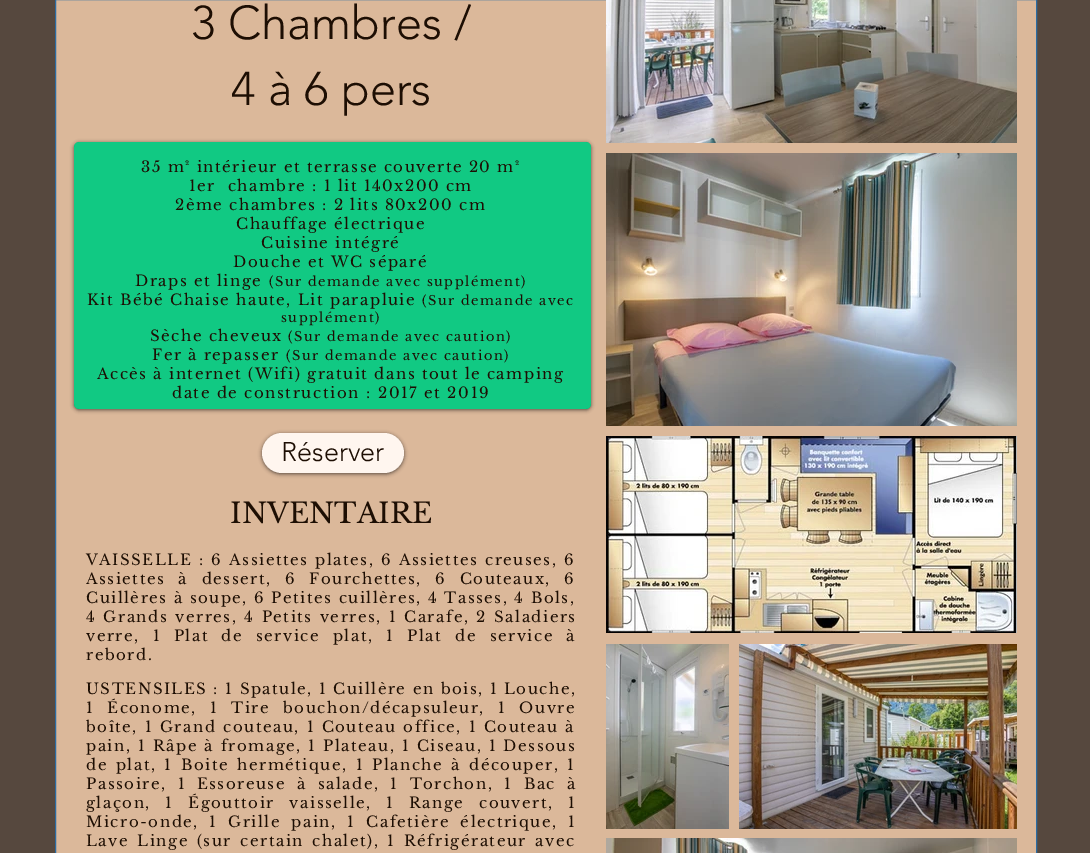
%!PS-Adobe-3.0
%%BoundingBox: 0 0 1090 853
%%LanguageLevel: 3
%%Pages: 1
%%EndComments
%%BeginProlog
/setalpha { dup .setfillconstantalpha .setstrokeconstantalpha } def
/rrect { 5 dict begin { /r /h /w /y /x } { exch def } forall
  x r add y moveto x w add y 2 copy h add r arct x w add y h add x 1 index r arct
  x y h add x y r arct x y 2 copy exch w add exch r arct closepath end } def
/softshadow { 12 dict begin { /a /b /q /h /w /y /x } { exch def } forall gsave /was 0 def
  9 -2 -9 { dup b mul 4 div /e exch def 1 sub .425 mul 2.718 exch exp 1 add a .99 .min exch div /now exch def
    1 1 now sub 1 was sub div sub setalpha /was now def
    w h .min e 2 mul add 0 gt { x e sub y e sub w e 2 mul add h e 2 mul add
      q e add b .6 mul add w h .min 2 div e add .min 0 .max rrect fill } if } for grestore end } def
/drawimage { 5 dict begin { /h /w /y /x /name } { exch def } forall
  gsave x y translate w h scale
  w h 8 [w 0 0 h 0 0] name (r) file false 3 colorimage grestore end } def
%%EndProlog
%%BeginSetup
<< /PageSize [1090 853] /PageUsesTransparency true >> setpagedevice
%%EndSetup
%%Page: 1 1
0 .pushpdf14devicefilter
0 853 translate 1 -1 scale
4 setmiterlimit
0.337 0.282 0.243 setrgbcolor
0 0 1090 853 rectfill
0.859 0.722 0.604 setrgbcolor
newpath 55.5 -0.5 moveto 1036.5 -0.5 lineto 1036.5 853.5 lineto 55.5 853.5 lineto closepath gsave fill grestore
0.169 0.424 0.639 setrgbcolor
stroke
(images/1.raw) 606 0 411 143 drawimage
(images/2.raw) 606 153 411 273 drawimage
(images/3.raw) 606 436 411 197 drawimage
(images/4.raw) 606 644 123 185 drawimage
(images/5.raw) 739 644 278 185 drawimage
(images/6.raw) 606 838 411 15 drawimage
gsave
newpath 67 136 moveto 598 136 lineto 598 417 lineto 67 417 lineto closepath 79 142 moveto 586 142 lineto 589 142 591 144 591 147 curveto 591 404 lineto 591 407 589 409 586 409 curveto 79 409 lineto 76 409 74 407 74 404 curveto 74 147 lineto 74 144 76 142 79 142 curveto closepath eoclip newpath
0 setgray
74 143 517 267 5 2 0.6 softshadow
grestore
0.93 setalpha
0.008 0.792 0.506 setrgbcolor
74 142 517 267 5 rrect fill
1 setalpha
0 setgray
262 434 142 40 20 2 0.6 softshadow
1 0.965 0.937 setrgbcolor
262 433 142 40 20 rrect fill
/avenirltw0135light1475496-Light [47 0 0 -47 0 0] selectfont
0.114 0.055 0.012 setrgbcolor
191 39 moveto (3 Chambres /) show
231 105 moveto (4 à 6 pers) show
/LibreBaskerville-Regular [15 0 0 -15 0 0] selectfont
141 172 moveto 1.5 0 (35 m² intérieur et terrasse couverte 20 m²) ashow
189 191 moveto 1.5 0 (1er  chambre : 1 lit 140x200 cm) ashow
175 210 moveto 1.5 0 (2ème chambres : 2 lits 80x200 cm) ashow
236 229 moveto 1.5 0 (Chauffage électrique) ashow
261 248 moveto 1.5 0 (Cuisine intégré) ashow
233 267 moveto 1.5 0 (Douche et WC séparé) ashow
135 286 moveto 1.5 0 (Draps et linge) ashow
/LibreBaskerville-Regular [13 0 0 -13 0 0] selectfont
269 286 moveto 1.5 0 (\(Sur demande avec supplément\)) ashow
/LibreBaskerville-Regular [15 0 0 -15 0 0] selectfont
87 305 moveto 1.5 0 (Kit Bébé Chaise haute, Lit parapluie) ashow
/LibreBaskerville-Regular [13 0 0 -13 0 0] selectfont
422 305 moveto 1.5 0 (\(Sur demande avec) ashow
281 322 moveto 1.5 0 (supplément\)) ashow
/LibreBaskerville-Regular [15 0 0 -15 0 0] selectfont
150 341 moveto 1.5 0 (Sèche cheveux) ashow
/LibreBaskerville-Regular [13 0 0 -13 0 0] selectfont
288 341 moveto 1.5 0 (\(Sur demande avec caution\)) ashow
/LibreBaskerville-Regular [15 0 0 -15 0 0] selectfont
152 360 moveto 1.5 0 (Fer à repasser) ashow
/LibreBaskerville-Regular [13 0 0 -13 0 0] selectfont
286 360 moveto 1.5 0 (\(Sur demande avec caution\)) ashow
/LibreBaskerville-Regular [15 0 0 -15 0 0] selectfont
97 379 moveto 1.5 0 (Accès à internet \(Wifi\) gratuit dans tout le camping) ashow
172 398 moveto 1.5 0 (date de) ashow
244 398 moveto 1.6 0 (construction : 2017 et 2019) ashow
/avenirltw0135light1475496-Light [27 0 0 -27 0 0] selectfont
281 461 moveto (Réserver) show
/LibreBaskerville-Regular [28 0 0 -28 0 0] selectfont
230 523 moveto (INVENTAIRE) show
/LibreBaskerville-Regular [15 0 0 -15 0 0] selectfont
86 565 moveto 1 0 32 1.5 0 (VAISSELLE : 6 Assiettes plates, 6 Assiettes creuses, 6) awidthshow
86 584 moveto 7.5 0 32 1.5 0 (Assiettes à dessert, 6 Fourchettes, 6 Couteaux, 6) awidthshow
86 603 moveto 0.25 0 32 1.5 0 (Cuillères à soupe, 6 Petites cuillères, 4 Tasses, 4 Bols,) awidthshow
86 622 moveto 1.25 0 32 1.5 0 (4 Grands verres, 4 Petits verres, 1 Carafe, 2 Saladiers) awidthshow
86 641 moveto 7 0 32 1.5 0 (verre, 1 Plat de service plat, 1 Plat de service à) awidthshow
86 660 moveto 1.5 0 (rebord.) ashow
86 694 moveto 0.25 0 32 1.5 0 (USTENSILES : 1 Spatule, 1 Cuillère en bois, 1 Louche,) awidthshow
86 713 moveto 7.25 0 32 1.5 0 (1 Économe, 1 Tire bouchon/décapsuleur, 1 Ouvre) awidthshow
86 732 moveto 1 0 32 1.5 0 (boîte, 1 Grand couteau, 1 Couteau office, 1 Couteau à) awidthshow
86 751 moveto 0.75 0 32 1.5 0 (pain, 1 Râpe à fromage, 1 Plateau, 1 Ciseau, 1 Dessous) awidthshow
86 770 moveto 2.25 0 32 1.5 0 (de plat, 1 Boite hermétique, 1 Planche à découper, 1) awidthshow
86 789 moveto 5.25 0 32 1.5 0 (Passoire, 1 Essoreuse à salade, 1 Torchon, 1 Bac à) awidthshow
86 808 moveto 8.75 0 32 1.5 0 (glaçon, 1 Égouttoir vaisselle, 1 Range couvert, 1) awidthshow
86 827 moveto 4.75 0 32 1.5 0 (Micro-onde, 1 Grille pain, 1 Cafetière électrique, 1) awidthshow
86 846 moveto 2.5 0 32 1.5 0 (Lave Linge \(sur certain chalet\), 1 Réfrigérateur avec) awidthshow
.poppdf14devicefilter showpage
%%EOF
